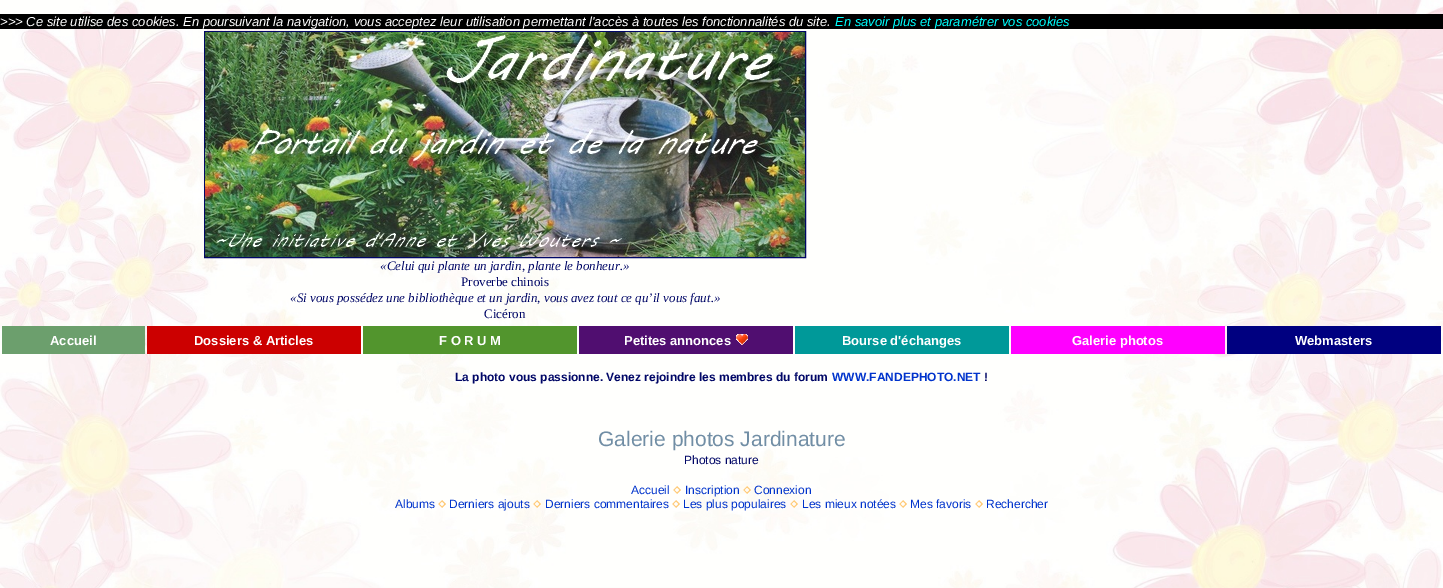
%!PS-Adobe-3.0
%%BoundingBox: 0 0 1443 588
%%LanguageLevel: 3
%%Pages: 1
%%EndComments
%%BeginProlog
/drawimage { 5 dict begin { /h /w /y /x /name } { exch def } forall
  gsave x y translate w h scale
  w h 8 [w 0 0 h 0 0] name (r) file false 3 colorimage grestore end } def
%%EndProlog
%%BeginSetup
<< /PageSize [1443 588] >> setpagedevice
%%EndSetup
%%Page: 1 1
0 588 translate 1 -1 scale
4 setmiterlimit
1 setgray
0 0 1443 588 rectfill
(images/1.raw) 0 0 1443 588 drawimage
0 setgray
0 14 1443 15 rectfill
0 0.024 0.4 setrgbcolor
204.5 31.5 601 226 rectstroke
(images/2.raw) 205 32 600 225 drawimage
0.424 0.624 0.427 setrgbcolor
2 326 143 28 rectfill
0.8 0 0 setrgbcolor
147 326 214 28 rectfill
0.322 0.584 0.176 setrgbcolor
363 326 214 28 rectfill
0.314 0.055 0.439 setrgbcolor
579 326 214 28 rectfill
(images/3.raw) 736 334 12 11 drawimage
0 0.6 0.6 setrgbcolor
795 326 214 28 rectfill
1 0 1 setrgbcolor
1011 326 214 28 rectfill
0 0 0.502 setrgbcolor
1227 326 214 28 rectfill
(images/4.raw) 673 486 8 8 drawimage
(images/5.raw) 743 486 8 8 drawimage
(images/6.raw) 438 500 8 8 drawimage
(images/7.raw) 533 500 8 8 drawimage
(images/8.raw) 672 500 8 8 drawimage
(images/9.raw) 790 500 8 8 drawimage
(images/4.raw) 899 500 8 8 drawimage
(images/4.raw) 975 500 8 8 drawimage
/LiberationSans-Italic [13 0 0 -13 0 0] selectfont
1 setgray
0 26 moveto (>>> Ce site utilise des cookies. En poursuivant la navigation, vous acceptez leur utilisation permettant l'accès à toutes les fonctionnalités du site.) show
0 1 1 setrgbcolor
835 26 moveto (En savoir plus et paramétrer vos cookies) show
/LiberationSerif-Italic [13 0 0 -13 0 0] selectfont
0 0.024 0.4 setrgbcolor
380 270 moveto («Celui qui plante un jardin, plante le bonheur.») show
/LiberationSerif-Regular [13 0 0 -13 0 0] selectfont
461 286 moveto (Proverbe chinois) show
/LiberationSerif-Italic [13 0 0 -13 0 0] selectfont
290 302 moveto («Si vous possédez une bibliothèque et un jardin, vous avez tout ce qu’il vous faut.») show
/LiberationSerif-Regular [13 0 0 -13 0 0] selectfont
484 318 moveto (Cicéron) show
/LiberationSans-Bold [13 0 0 -13 0 0] selectfont
1 setgray
50 345 moveto (Accueil) show
194 345 moveto (Dossiers & Articles) show
439 345 moveto (F O R U M) show
624 345 moveto (Petites annonces) show
842 345 moveto (Bourse d'échanges) show
1072 345 moveto (Galerie photos) show
1295 345 moveto (Webmasters) show
/LiberationSans-Bold [12 0 0 -12 0 0] selectfont
0 0.024 0.4 setrgbcolor
455 381 moveto (La photo vous passionne. Venez rejoindre les membres du forum) show
0 0.2 0.8 setrgbcolor
832 381 moveto (WWW.FANDEPHOTO.NET) show
0 0.024 0.4 setrgbcolor
984 381 moveto (!) show
/LiberationSans-Regular [21 0 0 -21 0 0] selectfont
0.443 0.557 0.647 setrgbcolor
598 446 moveto (Galerie photos Jardinature) show
/LiberationSans-Regular [12 0 0 -12 0 0] selectfont
0 0.024 0.4 setrgbcolor
684 464 moveto (Photos nature) show
0 0.2 0.8 setrgbcolor
631 494 moveto (Accueil) show
685 494 moveto (Inscription) show
754 494 moveto (Connexion) show
395 508 moveto (Albums) show
449 508 moveto (Derniers ajouts) show
545 508 moveto (Derniers commentaires) show
683 508 moveto (Les plus populaires) show
802 508 moveto (Les mieux notées) show
910 508 moveto (Mes favoris) show
986 508 moveto (Rechercher) show
showpage
%%EOF
